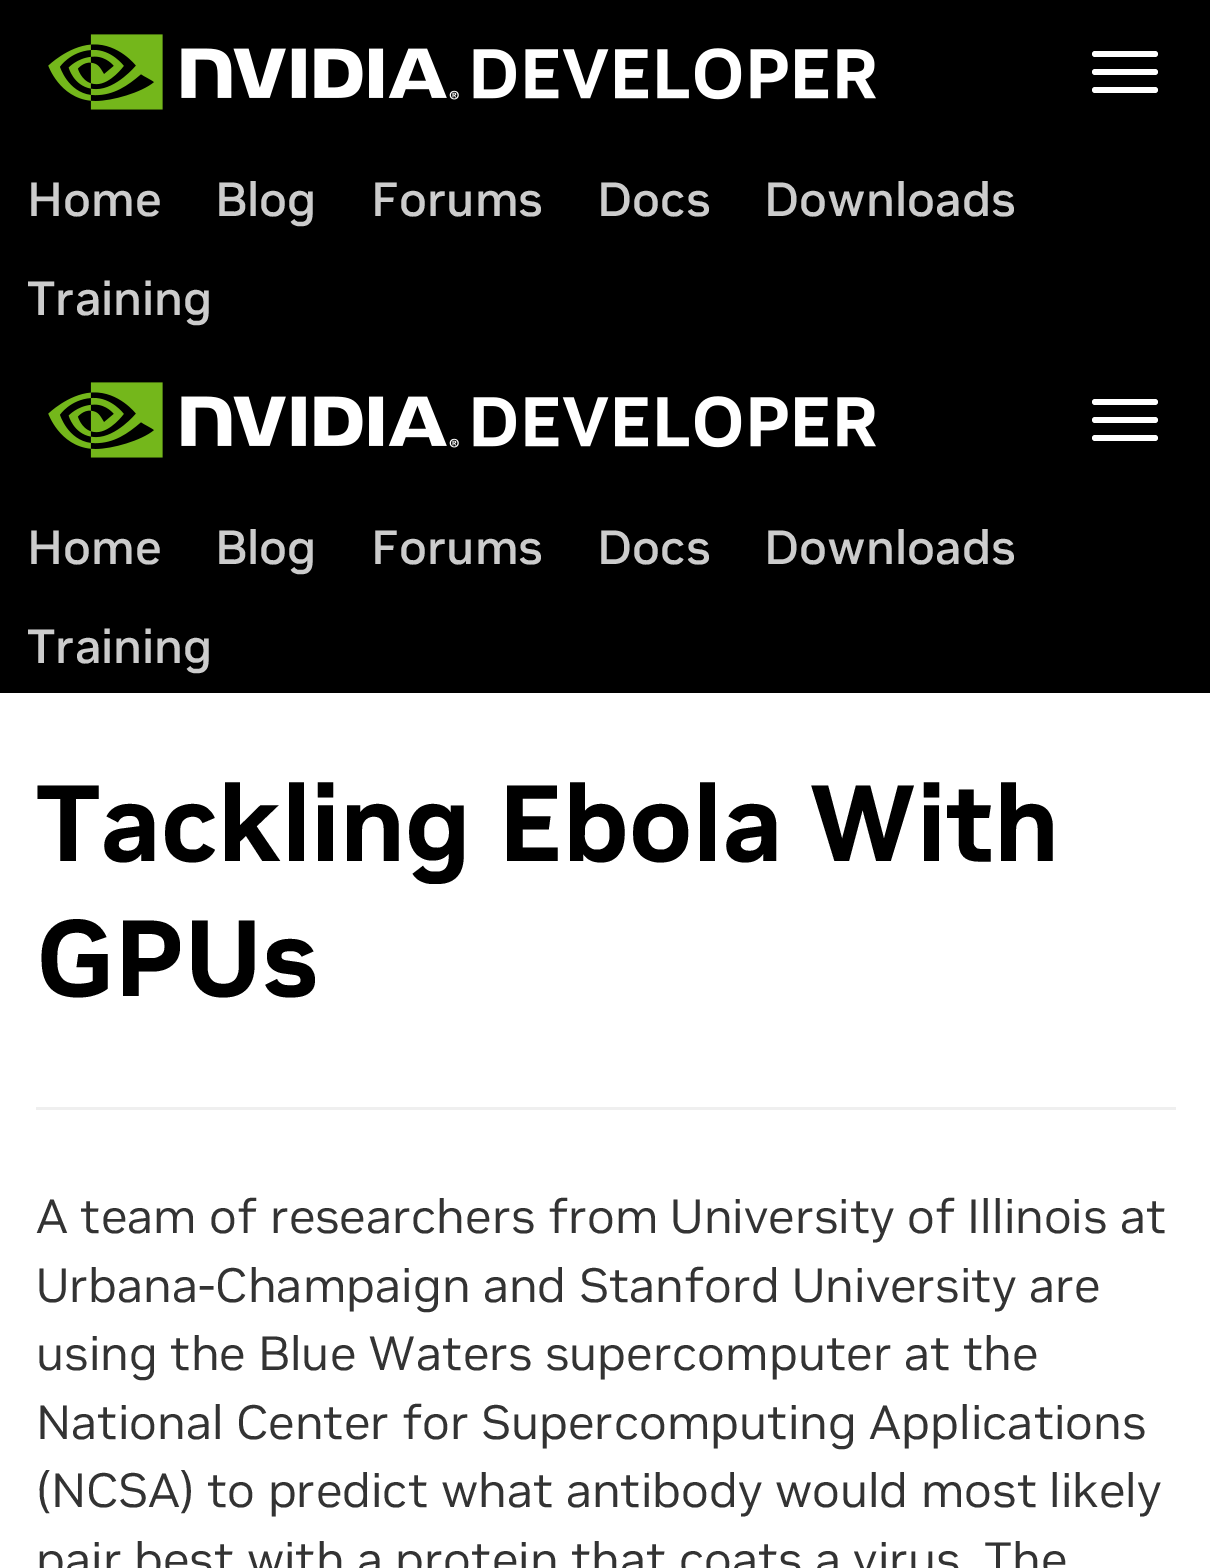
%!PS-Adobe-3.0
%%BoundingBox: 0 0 1210 1568
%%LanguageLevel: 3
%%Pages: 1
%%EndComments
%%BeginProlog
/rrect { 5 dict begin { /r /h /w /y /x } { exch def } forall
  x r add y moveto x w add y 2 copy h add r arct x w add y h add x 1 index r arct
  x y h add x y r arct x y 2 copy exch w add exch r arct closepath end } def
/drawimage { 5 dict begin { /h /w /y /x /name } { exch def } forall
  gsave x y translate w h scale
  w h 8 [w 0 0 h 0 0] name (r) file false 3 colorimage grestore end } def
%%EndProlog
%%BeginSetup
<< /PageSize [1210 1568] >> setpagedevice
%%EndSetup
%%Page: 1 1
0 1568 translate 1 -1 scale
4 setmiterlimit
1 setgray
0 0 1210 1568 rectfill
0 setgray
0 0 1210 693 rectfill
1 setgray
1092 51 66 6 3 rrect fill
1092 69 66 6 3 rrect fill
1092 87 66 6 3 rrect fill
(images/1.raw) 48 34 828 76 drawimage
1092 399 66 6 3 rrect fill
1092 417 66 6 3 rrect fill
1092 435 66 6 3 rrect fill
(images/1.raw) 48 382 828 76 drawimage
0.937 setgray
36 1107 1140 3 rectfill
/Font-Medium [48 0 0 -48 0 0] selectfont
0.8 setgray
27 216 moveto (Home) show
215 216 moveto (Blog) show
371 216 moveto (Forums) show
597 216 moveto (Docs) show
764 216 moveto (Downloads) show
27 315 moveto (Training) show
27 564 moveto (Home) show
215 564 moveto (Blog) show
371 564 moveto (Forums) show
597 564 moveto (Docs) show
764 564 moveto (Downloads) show
27 663 moveto (Training) show
/Font-Bold [108 0 0 -108 0 0] selectfont
0 setgray
36 861 moveto (Tackling Ebola With) show
36 996 moveto (GPUs) show
/Font-Regular [48 0 0 -48 0 0] selectfont
0.2 setgray
36 1233 moveto (A team of researchers from University of Illinois at) show
36 1302 moveto (Urbana-Champaign and Stanford University are) show
36 1370 moveto (using the Blue Waters supercomputer at the) show
36 1439 moveto (National Center for Supercomputing Applications) show
36 1507 moveto (\(NCSA\) to predict what antibody would most likely) show
36 1576 moveto (pair best with a protein that coats a virus. The) show
showpage
%%EOF
